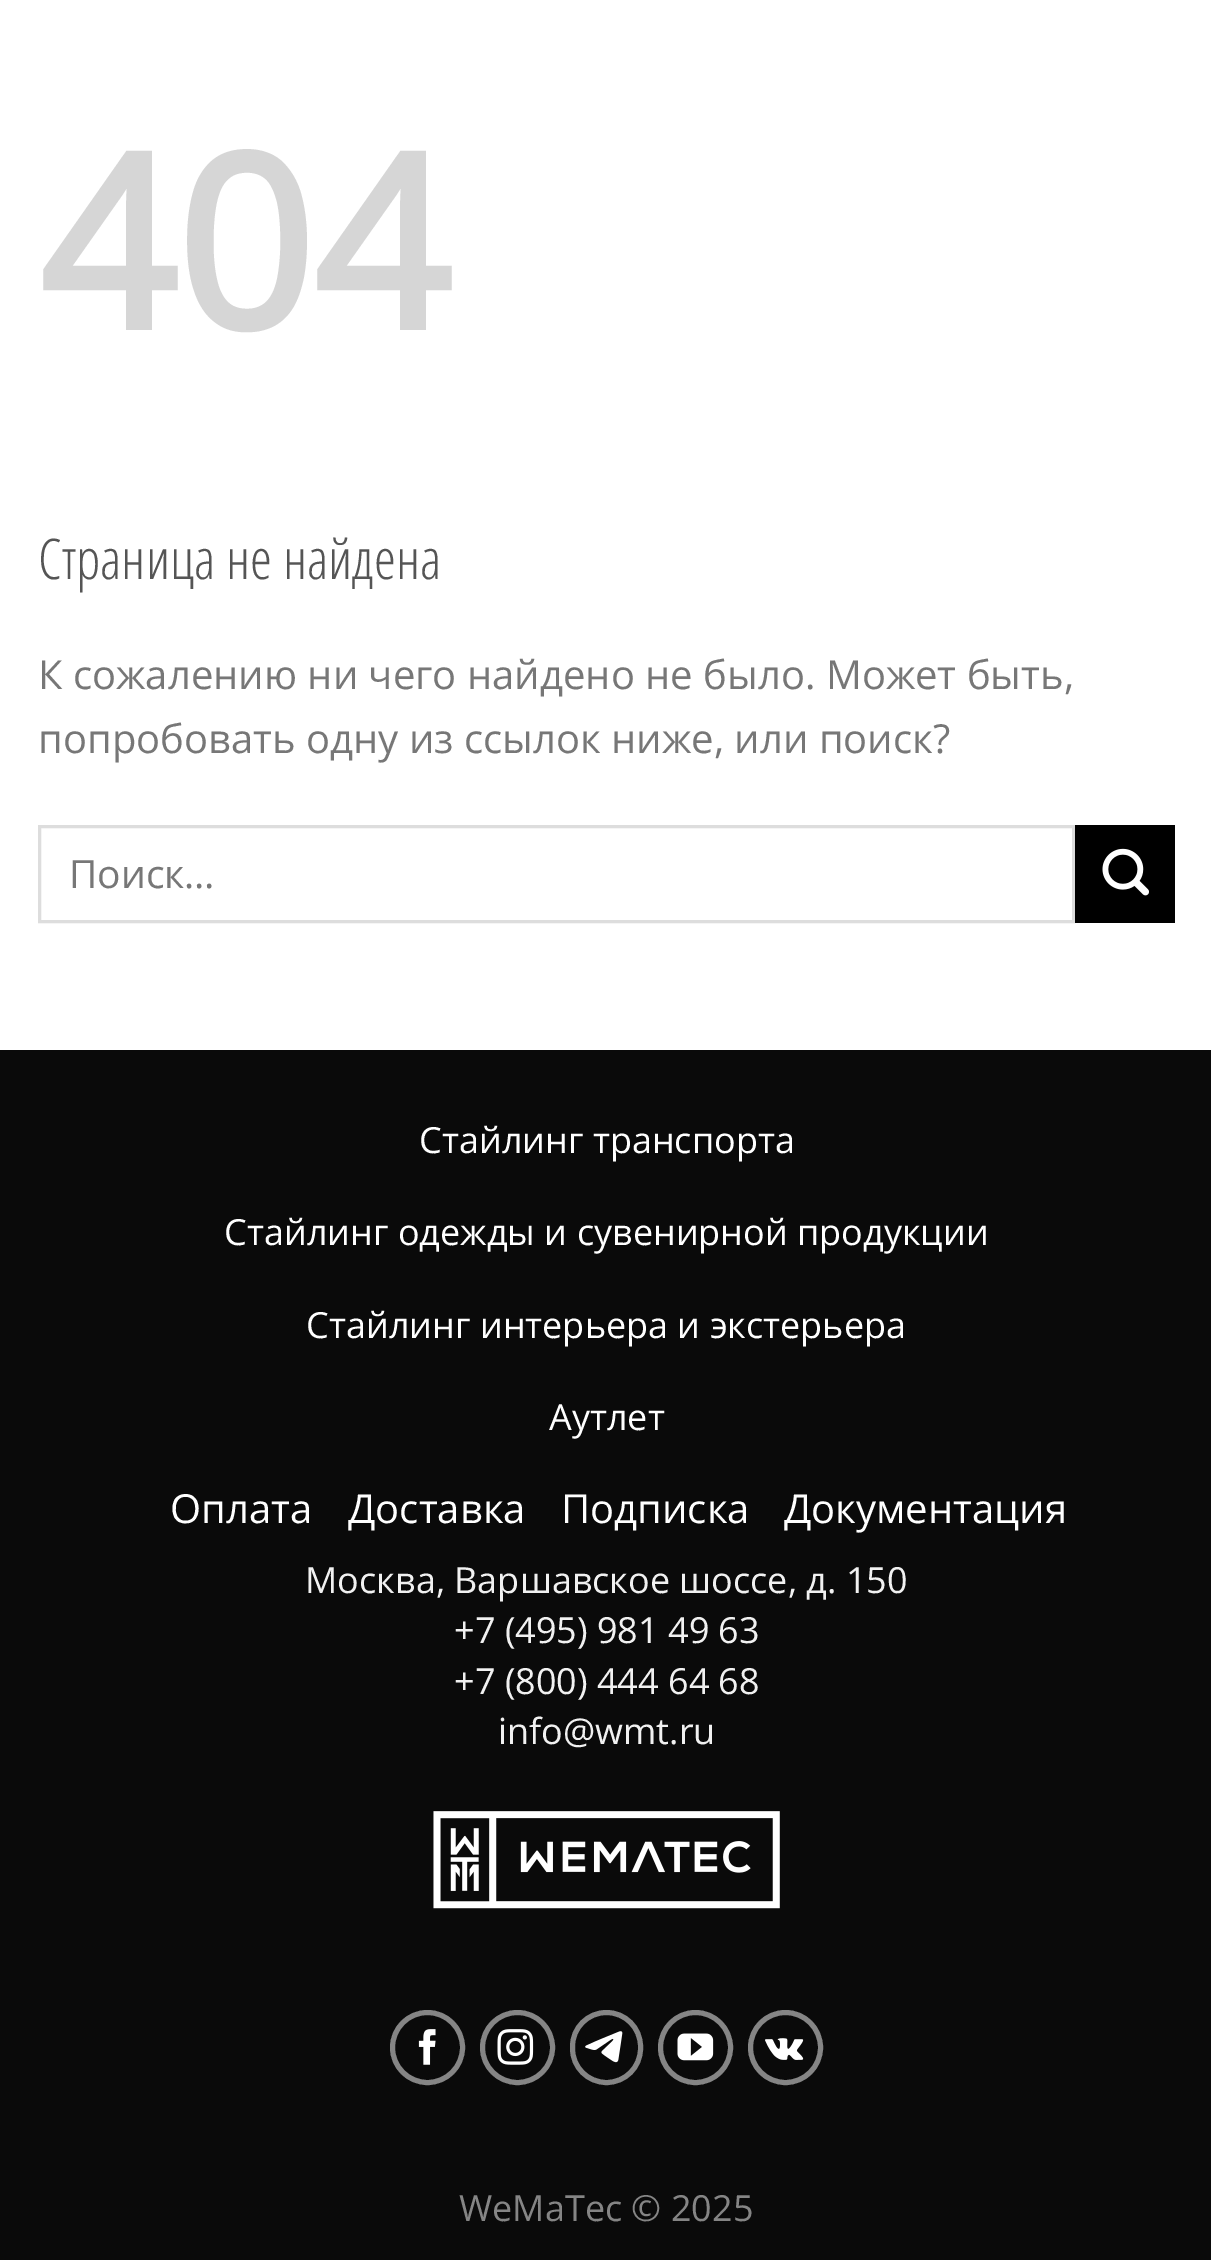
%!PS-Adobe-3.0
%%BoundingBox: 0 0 1211 2260
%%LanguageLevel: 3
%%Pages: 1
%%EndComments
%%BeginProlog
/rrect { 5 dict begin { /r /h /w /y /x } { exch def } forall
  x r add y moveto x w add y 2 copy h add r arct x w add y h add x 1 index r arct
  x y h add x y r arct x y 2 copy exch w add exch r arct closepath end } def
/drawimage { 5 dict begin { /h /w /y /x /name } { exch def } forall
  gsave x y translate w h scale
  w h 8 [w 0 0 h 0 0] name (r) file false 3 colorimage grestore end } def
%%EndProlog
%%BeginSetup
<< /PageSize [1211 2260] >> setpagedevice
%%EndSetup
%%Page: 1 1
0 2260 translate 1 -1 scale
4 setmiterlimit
1 setgray
0 0 1211 2260 rectfill
0.867 setgray
3 setlinewidth
39.5 826.5 1034 95 rectstroke
0 setgray
1075 825 100 98 rectfill
(images/1.raw) 1102 848 47 48 drawimage
0.039 setgray
0 1050 1211 1210 rectfill
(images/2.raw) 433 1811 347 98 drawimage
0.522 setgray
5 setlinewidth
newpath 427.5 2047.5 35 0 360 arc closepath stroke
(images/3.raw) 418 2029 18 36 drawimage
newpath 517.5 2047.5 35 0 360 arc closepath stroke
(images/4.raw) 497 2029 37 36 drawimage
572.5 2012.5 68 70 34 rrect stroke
(images/5.raw) 585 2031 38 32 drawimage
newpath 695.5 2047.5 35 0 360 arc closepath stroke
(images/6.raw) 677 2033 37 28 drawimage
newpath 785.5 2047.5 35 0 360 arc closepath stroke
(images/7.raw) 765 2038 39 22 drawimage
/OpenSans-Bold [240 0 0 -240 0 0] selectfont
0.839 setgray
38 330 moveto (404) show
/OpenSansCondensed-Light [56 0 0 -56 0 0] selectfont
0.333 setgray
38 579 moveto (Страница не найдена) show
/OpenSans-Regular [40 0 0 -40 0 0] selectfont
0.467 setgray
38 689 moveto (К сожалению ни чего найдено не было. Может быть,) show
38 753 moveto (попробовать одну из ссылок ниже, или поиск?) show
/OpenSans-Regular [39 0 0 -39 0 0] selectfont
69 888 moveto (Поиск…) show
/OpenSans-Regular [36 0 0 -36 0 0] selectfont
1 setgray
419 1153 moveto (Стайлинг транспорта) show
224 1245 moveto (Стайлинг одежды и сувенирной продукции) show
306 1338 moveto (Стайлинг интерьера и экстерьера) show
549 1430 moveto (Аутлет) show
/OpenSans-Regular [40 0 0 -40 0 0] selectfont
170 1523 moveto (Оплата) show
348 1523 moveto (Доставка) show
561 1523 moveto (Подписка) show
784 1523 moveto (Документация) show
/OpenSans-Regular [36 0 0 -36 0 0] selectfont
0.945 setgray
305 1593 moveto (Москва, Варшавское шоссе, д. 150) show
454 1643 moveto (+7 \(495\) 981 49 63) show
454 1694 moveto (+7 \(800\) 444 64 68) show
498 1744 moveto (info@wmt.ru) show
0.522 setgray
459 2221 moveto (WeMaTec © 2025) show
showpage
%%EOF
